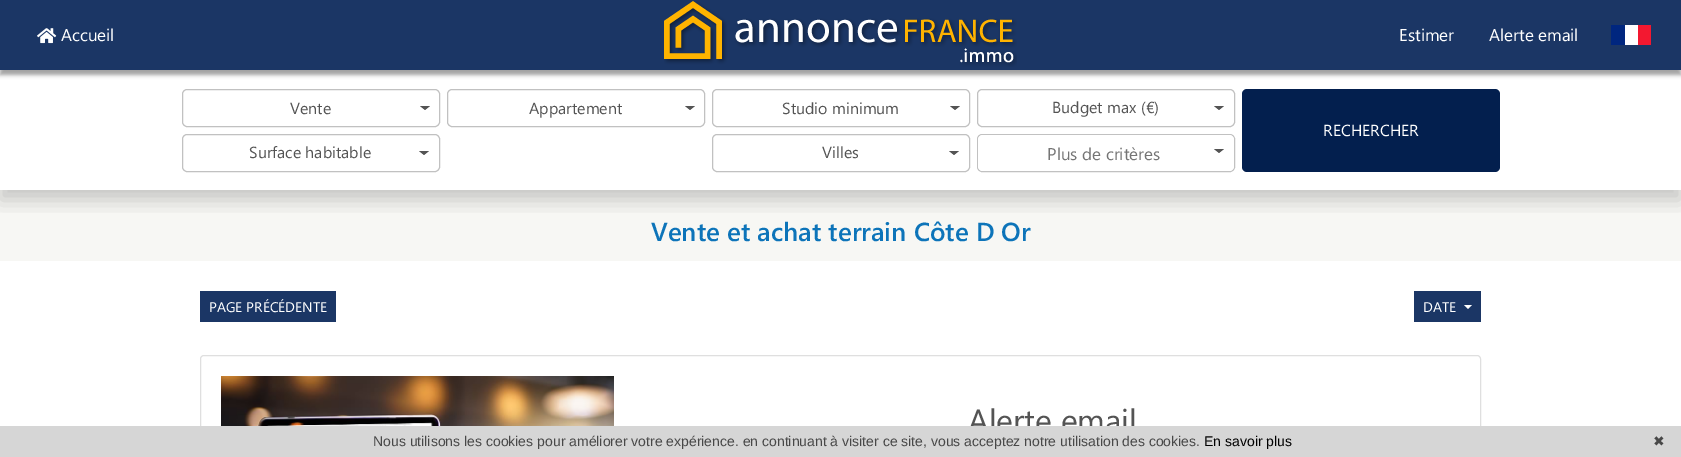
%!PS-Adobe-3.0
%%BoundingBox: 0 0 1681 457
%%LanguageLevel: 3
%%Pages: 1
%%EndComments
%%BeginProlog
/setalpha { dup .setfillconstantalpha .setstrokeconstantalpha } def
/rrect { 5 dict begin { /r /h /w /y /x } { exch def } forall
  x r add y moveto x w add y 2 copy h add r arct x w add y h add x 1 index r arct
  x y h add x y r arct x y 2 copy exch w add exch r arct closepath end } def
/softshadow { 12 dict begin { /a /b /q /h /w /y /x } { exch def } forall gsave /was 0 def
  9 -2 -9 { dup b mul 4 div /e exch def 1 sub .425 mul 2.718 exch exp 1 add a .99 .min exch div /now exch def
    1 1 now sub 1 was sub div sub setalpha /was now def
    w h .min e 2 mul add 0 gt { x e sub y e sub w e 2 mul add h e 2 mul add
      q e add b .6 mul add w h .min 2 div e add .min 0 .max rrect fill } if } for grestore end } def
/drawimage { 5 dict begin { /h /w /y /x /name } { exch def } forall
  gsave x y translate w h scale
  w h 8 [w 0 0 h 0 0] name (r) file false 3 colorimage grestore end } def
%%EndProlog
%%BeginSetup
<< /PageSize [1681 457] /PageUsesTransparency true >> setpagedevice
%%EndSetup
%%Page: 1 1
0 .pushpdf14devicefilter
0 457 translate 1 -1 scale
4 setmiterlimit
1 setgray
0 0 1681 457 rectfill
0.357 setgray
0 5 1681 70 0 2 0.57 softshadow
0.969 0.969 0.957 setrgbcolor
0 190 1681 71 rectfill
gsave
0 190 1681 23 rectclip
0 setgray
0 80 1681 120 0 10 0.2 softshadow
grestore
0.106 0.212 0.396 setrgbcolor
0 0 1681 70 rectfill
(images/1.raw) 37 28 20 16 drawimage
(images/2.raw) 664 1 353 66 drawimage
1 setgray
1625 25 13 20 rectfill
0 0.149 0.498 setrgbcolor
1611 25 14 20 rectfill
0.953 0.094 0.188 setrgbcolor
1638 25 13 20 rectfill
0.757 setgray
182.5 89.5 257 37 4.5 rrect stroke
0.329 setgray
newpath 420 106 moveto 430 106 lineto 425 110 lineto closepath fill
0.757 setgray
447.5 89.5 257 37 4.5 rrect stroke
0.329 setgray
newpath 685 106 moveto 695 106 lineto 690 110 lineto closepath fill
0.757 setgray
712.5 89.5 257 37 4.5 rrect stroke
0.329 setgray
newpath 950 106 moveto 960 106 lineto 955 110 lineto closepath fill
0.757 setgray
977.5 89.5 257 37 4.5 rrect stroke
0.329 setgray
newpath 1214 106 moveto 1224 106 lineto 1219 110 lineto closepath fill
0.012 0.122 0.306 setrgbcolor
1242 89 258 83 5 rrect fill
0.757 setgray
182.5 134.5 257 37 4.5 rrect stroke
0.329 setgray
newpath 419 151 moveto 429 151 lineto 424 155 lineto closepath fill
0.757 setgray
712.5 134.5 257 37 4.5 rrect stroke
0.329 setgray
newpath 949 151 moveto 959 151 lineto 954 155 lineto closepath fill
0.757 setgray
977.5 134.5 257 37 4.5 rrect stroke
1 setgray
978 135 256 36 5 rrect fill
0.329 setgray
newpath 1214 149 moveto 1224 149 lineto 1219 153 lineto closepath fill
0.106 0.212 0.396 setrgbcolor
200 291 136 31 rectfill
1414 291 67 31 rectfill
1 setgray
newpath 1464 305 moveto 1472 305 lineto 1468 309 lineto closepath fill
0.875 setgray
200.5 355.5 1280 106 3.5 rrect stroke
(images/3.raw) 221 376 393 50 drawimage
/SegoeUI-Regular [17 0 0 -17 0 0] selectfont
1 setgray
61 41 moveto (Accueil) show
1399 41 moveto (Estimer) show
1489 41 moveto (Alerte email) show
/SegoeUI-Regular [16 0 0 -16 0 0] selectfont
0.329 setgray
290 114 moveto (Vente) show
529 114 moveto (Appartement) show
782 114 moveto (Studio minimum) show
1052 113 moveto (Budget max \(€\)) show
1 setgray
1323 136 moveto (RECHERCHER) show
0.329 setgray
249 158 moveto (Surface habitable) show
822 158 moveto (Villes) show
/SegoeUI-Regular [17 0 0 -17 0 0] selectfont
0.459 setgray
1047 160 moveto (Plus de critères) show
/SegoeUI-SemiBold [26 0 0 -26 0 0] selectfont
0.051 0.455 0.725 setrgbcolor
651 241 moveto (Vente et achat terrain Côte D Or) show
/SegoeUI-Regular [14 0 0 -14 0 0] selectfont
1 setgray
209 312 moveto (PAGE PRÉCÉDENTE) show
1423 312 moveto (DATE) show
/SegoeUI-Regular [32 0 0 -32 0 0] selectfont
0.329 setgray
968 432 moveto (Alerte email) show
0.839 setgray
0 426 1681 31 rectfill
/LiberationSans-Regular [14 0 0 -14 0 0] selectfont
0.282 setgray
373 446 moveto (Nous utilisons les cookies pour améliorer votre expérience. en continuant à visiter ce site, vous acceptez notre utilisation des cookies.) show
0 setgray
1204 446 moveto (En savoir plus) show
/DejaVuSans-Regular [14 0 0 -14 0 0] selectfont
0.282 setgray
1653 446 moveto (✖) show
.poppdf14devicefilter showpage
%%EOF
